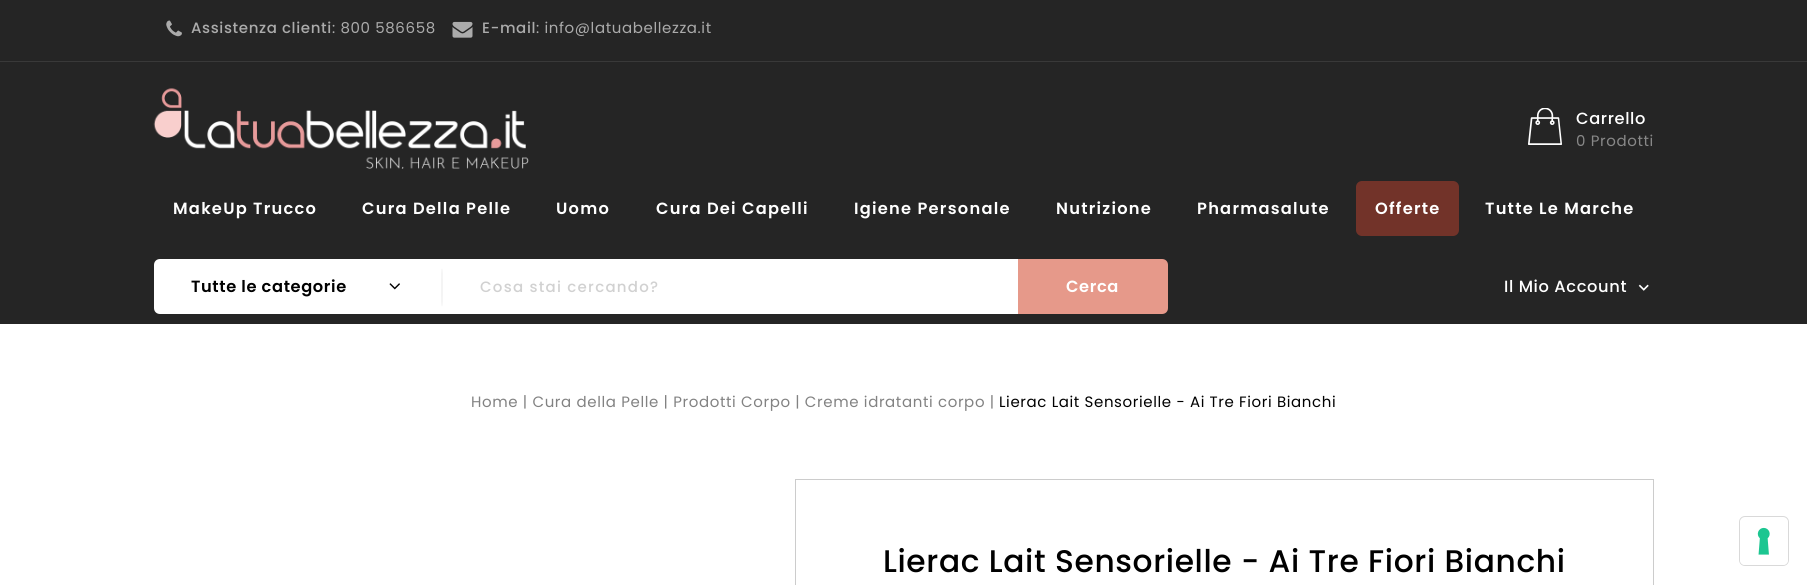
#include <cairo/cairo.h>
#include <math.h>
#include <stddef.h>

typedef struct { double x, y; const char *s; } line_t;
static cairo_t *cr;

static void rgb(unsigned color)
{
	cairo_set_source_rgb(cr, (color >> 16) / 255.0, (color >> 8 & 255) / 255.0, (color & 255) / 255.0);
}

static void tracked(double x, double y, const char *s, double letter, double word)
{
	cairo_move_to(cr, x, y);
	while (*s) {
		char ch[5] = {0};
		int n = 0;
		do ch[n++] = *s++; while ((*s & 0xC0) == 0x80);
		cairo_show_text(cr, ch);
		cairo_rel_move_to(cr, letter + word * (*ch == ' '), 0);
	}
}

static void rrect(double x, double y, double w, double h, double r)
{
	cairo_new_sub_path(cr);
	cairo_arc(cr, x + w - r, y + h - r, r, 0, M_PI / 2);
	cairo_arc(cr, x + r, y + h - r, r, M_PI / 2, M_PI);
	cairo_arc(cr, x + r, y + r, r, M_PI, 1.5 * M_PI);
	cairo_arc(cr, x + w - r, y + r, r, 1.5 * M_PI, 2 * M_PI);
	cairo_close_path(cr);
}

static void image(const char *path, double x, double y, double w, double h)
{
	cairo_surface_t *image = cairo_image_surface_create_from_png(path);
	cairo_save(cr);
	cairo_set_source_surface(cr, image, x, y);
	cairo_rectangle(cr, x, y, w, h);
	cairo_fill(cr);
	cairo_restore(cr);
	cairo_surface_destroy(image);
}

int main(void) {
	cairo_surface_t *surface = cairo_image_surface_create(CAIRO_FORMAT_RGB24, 1807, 585);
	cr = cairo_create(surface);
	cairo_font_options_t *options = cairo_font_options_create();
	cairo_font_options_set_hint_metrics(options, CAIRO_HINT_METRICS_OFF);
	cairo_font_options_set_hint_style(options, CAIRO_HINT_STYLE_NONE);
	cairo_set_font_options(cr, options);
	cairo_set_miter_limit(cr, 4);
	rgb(0xffffff);
	cairo_paint(cr);
	rgb(0x252525);
	cairo_rectangle(cr, 0, 0, 1807, 324);
	cairo_fill(cr);
	rgb(0x393939);
	cairo_rectangle(cr, 0, 61, 1807, 1);
	cairo_fill(cr);
	image("img/1.png", 166, 20, 16, 17);
	image("img/2.png", 452, 21, 21, 17);
	image("img/3.png", 153, 88, 376, 81);
	image("img/4.png", 1528, 108, 34, 37);
	rgb(0x723329);
	rrect(1356, 181, 103, 55, 6);
	cairo_fill(cr);
	rgb(0xffffff);
	cairo_new_path(cr);
	cairo_move_to(cr, 160, 259);
	cairo_line_to(cr, 443, 259);
	cairo_line_to(cr, 443, 314);
	cairo_line_to(cr, 160, 314);
	cairo_curve_to(cr, 156.5, 314, 154, 311.5, 154, 308);
	cairo_line_to(cr, 154, 265);
	cairo_curve_to(cr, 154, 261.5, 156.5, 259, 160, 259);
	cairo_close_path(cr);
	cairo_fill(cr);
	image("img/5.png", 389, 283, 11, 7);
	rgb(0xe8e8e8);
	cairo_new_path(cr);
	cairo_move_to(cr, 442, 268.5);
	cairo_curve_to(cr, 442.5, 268.5, 442.5, 277, 442.5, 287.5);
	cairo_curve_to(cr, 442.5, 298, 442.5, 306.5, 442, 306.5);
	cairo_curve_to(cr, 441.5, 306.5, 441.5, 298, 441.5, 287.5);
	cairo_curve_to(cr, 441.5, 277, 441.5, 268.5, 442, 268.5);
	cairo_close_path(cr);
	cairo_fill(cr);
	rgb(0xffffff);
	cairo_rectangle(cr, 443, 259, 575, 55);
	cairo_fill(cr);
	rgb(0xe6998a);
	cairo_new_path(cr);
	cairo_move_to(cr, 1018, 259);
	cairo_line_to(cr, 1162, 259);
	cairo_curve_to(cr, 1165.5, 259, 1168, 261.5, 1168, 265);
	cairo_line_to(cr, 1168, 308);
	cairo_curve_to(cr, 1168, 311.5, 1165.5, 314, 1162, 314);
	cairo_line_to(cr, 1018, 314);
	cairo_close_path(cr);
	cairo_fill(cr);
	image("img/6.png", 1638, 284, 11, 7);
	cairo_rectangle(cr, 795.5, 479.5, 858, 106);
	rgb(0xcccccc);
	cairo_set_line_width(cr, 1);
	cairo_stroke(cr);
	rrect(1739.5, 516.5, 49, 49, 5.5);
	rgb(0xd9d9d9);
	cairo_stroke(cr);
	rgb(0xffffff);
	rrect(1740, 518, 48, 47, 5);
	cairo_fill(cr);
	image("img/7.png", 1757, 527, 13, 28);
	cairo_select_font_face(cr, "Poppins Medium", CAIRO_FONT_SLANT_NORMAL, CAIRO_FONT_WEIGHT_NORMAL);
	cairo_set_font_size(cr, 15);
	rgb(0xababab);
	tracked(191, 33, "Assistenza clienti", 0.62, 0);
	cairo_select_font_face(cr, "Poppins", CAIRO_FONT_SLANT_NORMAL, CAIRO_FONT_WEIGHT_NORMAL);
	tracked(332, 33, ": 800 586658", 0.62, 0);
	cairo_select_font_face(cr, "Poppins Medium", CAIRO_FONT_SLANT_NORMAL, CAIRO_FONT_WEIGHT_NORMAL);
	tracked(482, 33, "E-mail", 0.62, 0);
	cairo_select_font_face(cr, "Poppins", CAIRO_FONT_SLANT_NORMAL, CAIRO_FONT_WEIGHT_NORMAL);
	tracked(536, 33, ": info@latuabellezza.it", 0.62, 0);
	cairo_select_font_face(cr, "Poppins Medium", CAIRO_FONT_SLANT_NORMAL, CAIRO_FONT_WEIGHT_NORMAL);
	cairo_set_font_size(cr, 16.25);
	rgb(0xffffff);
	tracked(1576, 124, "Carrello", 0.62, 0);
	cairo_select_font_face(cr, "Poppins", CAIRO_FONT_SLANT_NORMAL, CAIRO_FONT_WEIGHT_NORMAL);
	cairo_set_font_size(cr, 15);
	rgb(0x888888);
	tracked(1576, 146, "0 Prodotti", 0.62, 0);
	cairo_select_font_face(cr, "Poppins SemiBold", CAIRO_FONT_SLANT_NORMAL, CAIRO_FONT_WEIGHT_NORMAL);
	cairo_set_font_size(cr, 16.25);
	rgb(0xffffff);
	{
		static const line_t items[] = {
			{173, 214, "MakeUp Trucco"},
			{362, 214, "Cura Della Pelle"},
			{556, 214, "Uomo"},
			{656, 214, "Cura Dei Capelli"},
			{854, 214, "Igiene Personale"},
			{1056, 214, "Nutrizione"},
			{1197, 214, "Pharmasalute"},
			{1375, 214, "Offerte"},
			{1485, 214, "Tutte Le Marche"},
		};
		for (size_t i = 0; i < sizeof items / sizeof *items; i++) {
			tracked(items[i].x, items[i].y, items[i].s, 1.25, 0);
		}
	}
	rgb(0x000000);
	tracked(191, 292, "Tutte le categorie", 0.62, 0);
	cairo_select_font_face(cr, "Poppins Medium", CAIRO_FONT_SLANT_NORMAL, CAIRO_FONT_WEIGHT_NORMAL);
	cairo_set_font_size(cr, 15);
	rgb(0xd1d1d1);
	tracked(480, 292, "Cosa stai cercando?", 1.25, 0);
	cairo_select_font_face(cr, "Poppins SemiBold", CAIRO_FONT_SLANT_NORMAL, CAIRO_FONT_WEIGHT_NORMAL);
	cairo_set_font_size(cr, 16.25);
	rgb(0xffffff);
	tracked(1066, 292, "Cerca", 0.62, 0);
	cairo_select_font_face(cr, "Poppins Medium", CAIRO_FONT_SLANT_NORMAL, CAIRO_FONT_WEIGHT_NORMAL);
	tracked(1504, 292, "Il Mio Account", 0.62, 0);
	cairo_select_font_face(cr, "Poppins", CAIRO_FONT_SLANT_NORMAL, CAIRO_FONT_WEIGHT_NORMAL);
	cairo_set_font_size(cr, 15);
	rgb(0x828282);
	tracked(471, 407, "Home | Cura della Pelle | Prodotti Corpo | Creme idratanti corpo |", 0.62, 0);
	rgb(0x000000);
	tracked(999, 407, "Lierac Lait Sensorielle - Ai Tre Fiori Bianchi", 0.62, 0);
	cairo_select_font_face(cr, "Poppins Medium", CAIRO_FONT_SLANT_NORMAL, CAIRO_FONT_WEIGHT_NORMAL);
	cairo_set_font_size(cr, 31.25);
	tracked(883, 572, "Lierac Lait Sensorielle - Ai Tre Fiori Bianchi", 0.62, 0);
	cairo_surface_write_to_png(surface, "page.png");
	cairo_font_options_destroy(options);
	cairo_destroy(cr);
	cairo_surface_destroy(surface);
	return 0;
}
